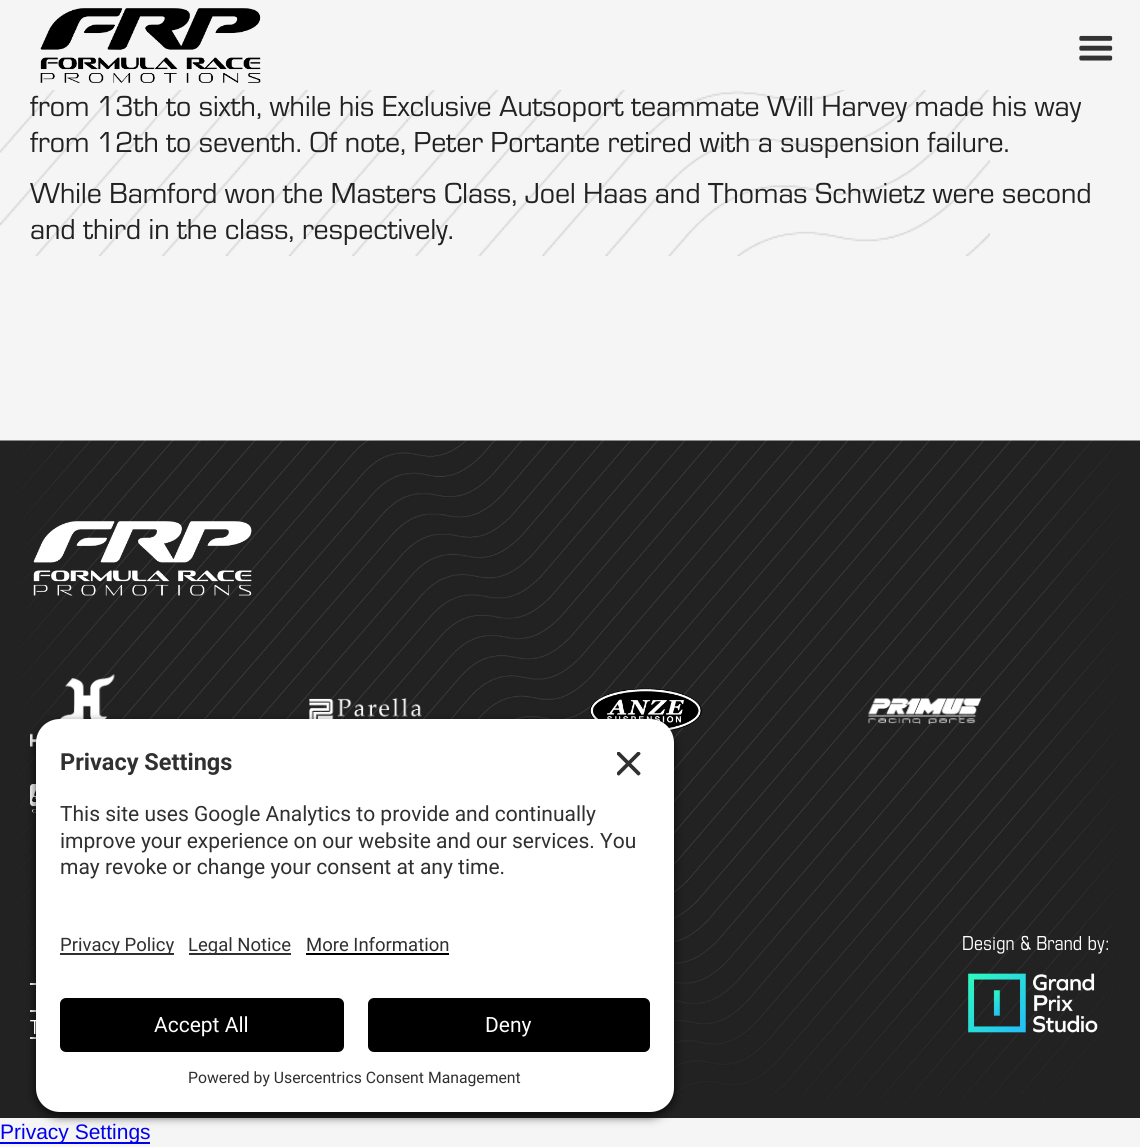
#include <cairo/cairo.h>
#include <math.h>
#include <stddef.h>

typedef struct { double x, y; const char *s; } line_t;
typedef struct { double x, y, w, h; unsigned color; } box_t;
static cairo_t *cr;

static void rgb(unsigned color)
{
	cairo_set_source_rgb(cr, (color >> 16) / 255.0, (color >> 8 & 255) / 255.0, (color & 255) / 255.0);
}

static void rrect(double x, double y, double w, double h, double r)
{
	cairo_new_sub_path(cr);
	cairo_arc(cr, x + w - r, y + h - r, r, 0, M_PI / 2);
	cairo_arc(cr, x + r, y + h - r, r, M_PI / 2, M_PI);
	cairo_arc(cr, x + r, y + r, r, M_PI, 1.5 * M_PI);
	cairo_arc(cr, x + w - r, y + r, r, 1.5 * M_PI, 2 * M_PI);
	cairo_close_path(cr);
}

static void soft_shadow(double x, double y, double w, double h, double r, double blur, double alpha)
{
	cairo_push_group_with_content(cr, CAIRO_CONTENT_ALPHA);
	cairo_set_operator(cr, CAIRO_OPERATOR_SOURCE);
	for (int i = 15; i >= -15 && fmin(w, h) + blur * i / 3 > 0; i -= 2) {
		double e = blur * i / 6;
		cairo_set_source_rgba(cr, 0, 0, 0, alpha * erfc((i - 1) / 8.5) / 2);
		rrect(x - e, y - e, w + 2 * e, h + 2 * e, fmax(0, fmin(r + e + blur * .6, fmin(w, h) / 2 + e)));
		cairo_fill(cr);
	}
	cairo_pattern_t *soft = cairo_pop_group(cr);
	cairo_mask(cr, soft);
	cairo_pattern_destroy(soft);
}

static void image(const char *path, double x, double y, double w, double h)
{
	cairo_surface_t *image = cairo_image_surface_create_from_png(path);
	cairo_save(cr);
	cairo_set_source_surface(cr, image, x, y);
	cairo_rectangle(cr, x, y, w, h);
	cairo_fill(cr);
	cairo_restore(cr);
	cairo_surface_destroy(image);
}

int main(void) {
	cairo_surface_t *surface = cairo_image_surface_create(CAIRO_FORMAT_RGB24, 1140, 1147);
	cr = cairo_create(surface);
	cairo_font_options_t *options = cairo_font_options_create();
	cairo_font_options_set_hint_metrics(options, CAIRO_HINT_METRICS_OFF);
	cairo_font_options_set_hint_style(options, CAIRO_HINT_STYLE_NONE);
	cairo_set_font_options(cr, options);
	cairo_set_miter_limit(cr, 4);
	rgb(0xf5f5f5);
	cairo_paint(cr);
	image("img/1.png", 40, 8, 221, 75);
	image("img/2.png", 1079, 35, 34, 26);
	image("img/3.png", 0, 90, 990, 166);
	rgb(0x222222);
	cairo_rectangle(cr, 0, 1099, 1140, 19);
	cairo_fill(cr);
	image("img/5.png", 0, 440, 1140, 659);
	image("img/7.png", 30, 674, 85, 73);
	image("img/8.png", 309, 698, 113, 21);
	image("img/9.png", 589, 688, 113, 44);
	image("img/11.png", 30, 784, 6, 29);
	{
		static const box_t items[] = {
			{30, 983, 6, 2, 0xffffff},
			{30, 1010, 6, 2, 0xffffff},
			{30, 1037, 6, 2, 0xffffff},
		};
		for (size_t i = 0; i < sizeof items / sizeof *items; i++) {
			rgb(items[i].color);
			cairo_rectangle(cr, items[i].x, items[i].y, items[i].w, items[i].h);
			cairo_fill(cr);
		}
	}
	rgb(0x000000);
	soft_shadow(36, 723, 638, 393, 24, 5, 0.8);
	rgb(0xffffff);
	cairo_new_path(cr);
	cairo_move_to(cr, 60, 719);
	cairo_line_to(cr, 650, 719);
	cairo_curve_to(cr, 663.5, 719, 674, 729.5, 674, 743);
	cairo_line_to(cr, 674, 911);
	cairo_line_to(cr, 36, 911);
	cairo_line_to(cr, 36, 743);
	cairo_curve_to(cr, 36, 729.5, 46.5, 719, 60, 719);
	cairo_close_path(cr);
	cairo_fill(cr);
	image("img/4.png", 617, 752, 24, 24);
	cairo_new_path(cr);
	cairo_move_to(cr, 36, 911);
	cairo_line_to(cr, 674, 911);
	cairo_line_to(cr, 674, 1088);
	cairo_curve_to(cr, 674, 1101.5, 663.5, 1112, 650, 1112);
	cairo_line_to(cr, 60, 1112);
	cairo_curve_to(cr, 46.5, 1112, 36, 1101.5, 36, 1088);
	cairo_close_path(cr);
	cairo_fill(cr);
	{
		static const box_t items[] = {
			{60, 953, 114, 2, 0x303030},
			{189, 953, 102, 2, 0x303030},
			{306, 953, 143, 2, 0x000000},
		};
		for (size_t i = 0; i < sizeof items / sizeof *items; i++) {
			rgb(items[i].color);
			cairo_rectangle(cr, items[i].x, items[i].y, items[i].w, items[i].h);
			cairo_fill(cr);
		}
	}
	rrect(60, 998, 284, 54, 6);
	cairo_fill(cr);
	rrect(368, 998, 282, 54, 6);
	cairo_fill(cr);
	image("img/6.png", 33, 521, 219, 75);
	image("img/10.png", 868, 698, 113, 26);
	image("img/12.png", 968, 973, 130, 60);
	rgb(0x0000ee);
	cairo_rectangle(cr, 0, 1142, 150, 2);
	cairo_fill(cr);
	cairo_select_font_face(cr, "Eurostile", CAIRO_FONT_SLANT_NORMAL, CAIRO_FONT_WEIGHT_NORMAL);
	cairo_set_font_size(cr, 30);
	rgb(0x222222);
	{
		static const line_t items[] = {
			{30, 116, "from 13th to sixth, while his Exclusive Autsoport teammate Will Harvey made his way"},
			{30, 152, "from 12th to seventh. Of note, Peter Portante retired with a suspension failure."},
			{30, 203, "While Bamford won the Masters Class, Joel Haas and Thomas Schwietz were second"},
			{30, 239, "and third in the class, respectively."},
		};
		for (size_t i = 0; i < sizeof items / sizeof *items; i++) {
			cairo_move_to(cr, items[i].x, items[i].y);
			cairo_show_text(cr, items[i].s);
		}
	}
	cairo_select_font_face(cr, "Roboto", CAIRO_FONT_SLANT_NORMAL, CAIRO_FONT_WEIGHT_BOLD);
	cairo_set_font_size(cr, 23.5);
	rgb(0x303030);
	cairo_move_to(cr, 60, 770);
	cairo_show_text(cr, "Privacy Settings");
	cairo_select_font_face(cr, "Roboto", CAIRO_FONT_SLANT_NORMAL, CAIRO_FONT_WEIGHT_NORMAL);
	cairo_set_font_size(cr, 21);
	{
		static const line_t items[] = {
			{60, 821, "This site uses Google Analytics to provide and continually"},
			{60, 848, "improve your experience on our website and our services. You"},
			{60, 874, "may revoke or change your consent at any time."},
		};
		for (size_t i = 0; i < sizeof items / sizeof *items; i++) {
			cairo_move_to(cr, items[i].x, items[i].y);
			cairo_show_text(cr, items[i].s);
		}
	}
	cairo_set_font_size(cr, 18.5);
	{
		static const line_t items[] = {
			{60, 951, "Privacy Policy"},
			{188, 951, "Legal Notice"},
			{306, 951, "More Information"},
		};
		for (size_t i = 0; i < sizeof items / sizeof *items; i++) {
			cairo_move_to(cr, items[i].x, items[i].y);
			cairo_show_text(cr, items[i].s);
		}
	}
	cairo_set_font_size(cr, 21);
	rgb(0xffffff);
	cairo_move_to(cr, 154, 1032);
	cairo_show_text(cr, "Accept All");
	cairo_move_to(cr, 485, 1032);
	cairo_show_text(cr, "Deny");
	cairo_set_font_size(cr, 15.75);
	rgb(0x303030);
	cairo_move_to(cr, 188, 1083);
	cairo_show_text(cr, "Powered by Usercentrics Consent Management");
	cairo_select_font_face(cr, "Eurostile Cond", CAIRO_FONT_SLANT_NORMAL, CAIRO_FONT_WEIGHT_NORMAL);
	cairo_set_font_size(cr, 21);
	rgb(0xffffff);
	cairo_move_to(cr, 962, 950);
	cairo_show_text(cr, "Design & Brand by:");
	cairo_move_to(cr, 30, 1034);
	cairo_show_text(cr, "T");
	cairo_select_font_face(cr, "Liberation Sans", CAIRO_FONT_SLANT_NORMAL, CAIRO_FONT_WEIGHT_NORMAL);
	rgb(0x0000ee);
	cairo_move_to(cr, 0, 1139);
	cairo_show_text(cr, "Privacy Settings");
	cairo_surface_write_to_png(surface, "page.png");
	cairo_font_options_destroy(options);
	cairo_destroy(cr);
	cairo_surface_destroy(surface);
	return 0;
}
